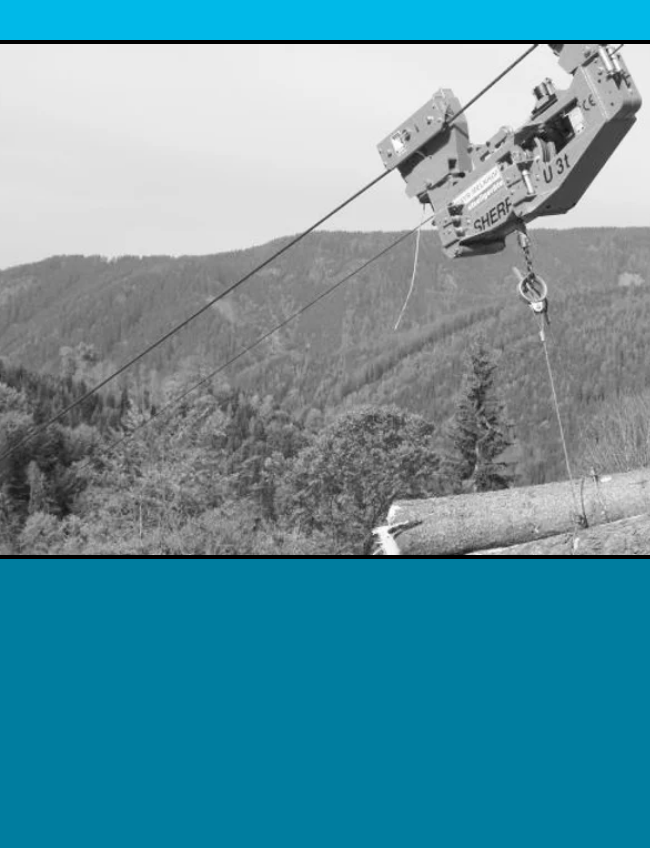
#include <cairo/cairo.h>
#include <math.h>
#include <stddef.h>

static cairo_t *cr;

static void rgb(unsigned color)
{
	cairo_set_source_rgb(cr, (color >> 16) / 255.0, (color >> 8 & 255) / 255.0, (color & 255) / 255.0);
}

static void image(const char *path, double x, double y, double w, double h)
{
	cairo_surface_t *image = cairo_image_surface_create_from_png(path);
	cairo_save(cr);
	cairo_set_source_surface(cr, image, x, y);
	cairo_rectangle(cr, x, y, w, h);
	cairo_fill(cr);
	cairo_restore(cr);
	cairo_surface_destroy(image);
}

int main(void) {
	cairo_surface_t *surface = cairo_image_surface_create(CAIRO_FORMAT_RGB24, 650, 848);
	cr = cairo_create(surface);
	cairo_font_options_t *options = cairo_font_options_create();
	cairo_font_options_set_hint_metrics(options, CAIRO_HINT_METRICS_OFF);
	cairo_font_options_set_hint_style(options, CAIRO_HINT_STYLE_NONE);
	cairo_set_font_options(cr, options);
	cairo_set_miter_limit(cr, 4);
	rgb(0x00b9e8);
	cairo_paint(cr);
	rgb(0x000000);
	cairo_rectangle(cr, 0, 40, 650, 519);
	cairo_fill(cr);
	image("img/1.png", 0, 44, 650, 511);
	rgb(0x007d9f);
	cairo_rectangle(cr, 0, 559, 650, 289);
	cairo_fill(cr);
	cairo_surface_write_to_png(surface, "page.png");
	cairo_font_options_destroy(options);
	cairo_destroy(cr);
	cairo_surface_destroy(surface);
	return 0;
}
